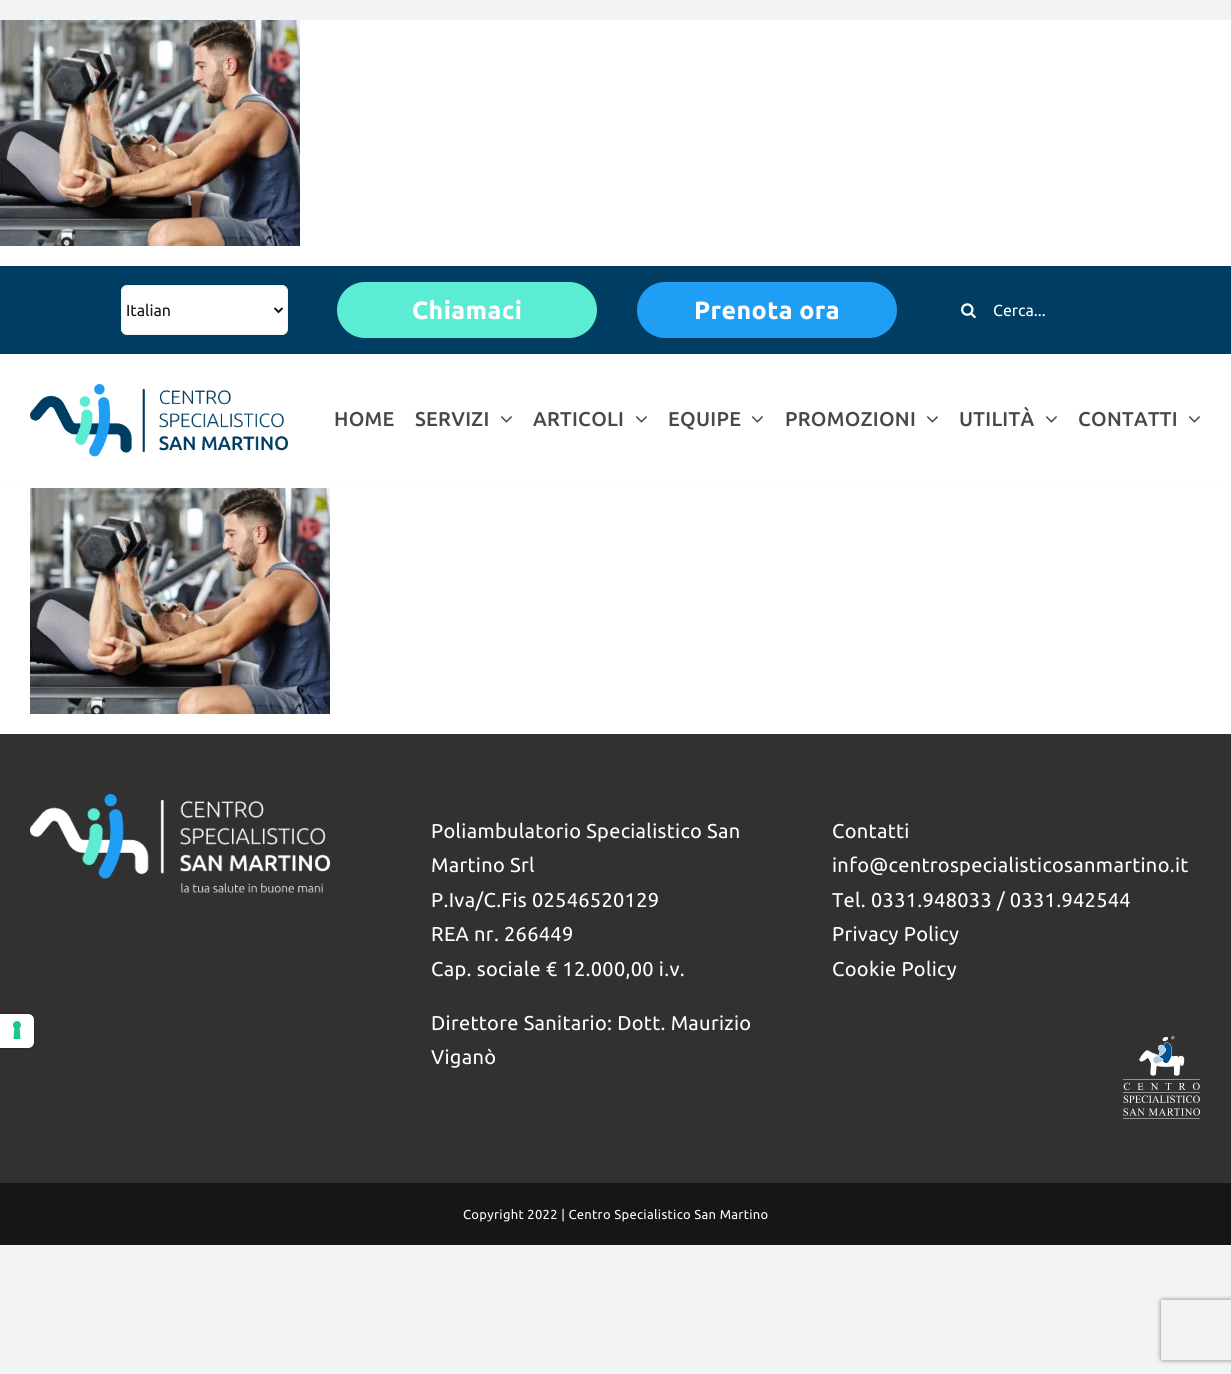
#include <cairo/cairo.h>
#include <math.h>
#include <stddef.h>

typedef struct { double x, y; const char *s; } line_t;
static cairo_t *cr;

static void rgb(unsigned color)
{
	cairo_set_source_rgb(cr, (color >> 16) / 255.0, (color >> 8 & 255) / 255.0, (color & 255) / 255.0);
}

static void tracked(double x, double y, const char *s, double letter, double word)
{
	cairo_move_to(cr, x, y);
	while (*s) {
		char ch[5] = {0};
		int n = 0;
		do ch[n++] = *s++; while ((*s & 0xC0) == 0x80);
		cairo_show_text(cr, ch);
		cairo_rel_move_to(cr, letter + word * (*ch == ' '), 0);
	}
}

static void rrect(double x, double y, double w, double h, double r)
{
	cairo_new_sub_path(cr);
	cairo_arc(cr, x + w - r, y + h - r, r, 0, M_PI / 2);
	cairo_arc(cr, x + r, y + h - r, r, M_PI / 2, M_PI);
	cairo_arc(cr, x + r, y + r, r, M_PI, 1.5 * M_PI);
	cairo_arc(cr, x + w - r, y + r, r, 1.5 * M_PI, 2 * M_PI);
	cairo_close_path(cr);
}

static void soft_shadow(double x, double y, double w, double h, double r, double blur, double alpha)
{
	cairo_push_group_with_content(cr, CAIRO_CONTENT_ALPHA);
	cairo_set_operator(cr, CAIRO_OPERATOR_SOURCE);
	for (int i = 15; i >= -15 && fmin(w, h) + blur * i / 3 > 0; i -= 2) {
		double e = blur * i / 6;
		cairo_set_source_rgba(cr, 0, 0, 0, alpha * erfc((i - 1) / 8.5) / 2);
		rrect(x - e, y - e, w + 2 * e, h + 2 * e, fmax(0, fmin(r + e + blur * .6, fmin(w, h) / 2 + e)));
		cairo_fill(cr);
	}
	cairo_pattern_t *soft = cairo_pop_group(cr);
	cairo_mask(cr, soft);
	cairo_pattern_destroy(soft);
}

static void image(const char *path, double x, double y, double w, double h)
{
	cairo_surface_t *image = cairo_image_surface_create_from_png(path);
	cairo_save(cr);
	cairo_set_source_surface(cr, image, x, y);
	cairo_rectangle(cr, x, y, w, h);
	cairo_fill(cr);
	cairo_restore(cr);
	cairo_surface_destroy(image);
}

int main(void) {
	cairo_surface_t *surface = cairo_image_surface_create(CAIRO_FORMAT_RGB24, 1231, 1374);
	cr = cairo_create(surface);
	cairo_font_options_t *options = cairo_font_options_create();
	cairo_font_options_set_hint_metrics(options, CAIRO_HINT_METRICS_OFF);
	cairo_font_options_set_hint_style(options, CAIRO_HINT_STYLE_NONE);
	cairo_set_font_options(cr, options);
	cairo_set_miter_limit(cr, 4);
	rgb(0xf2f3f5);
	cairo_paint(cr);
	rgb(0x313131);
	cairo_rectangle(cr, 0, 734, 1231, 449);
	cairo_fill(cr);
	cairo_new_path(cr);
	cairo_move_to(cr, -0.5, 1013.5);
	cairo_line_to(cr, 28, 1013.5);
	cairo_curve_to(cr, 31.5, 1013.5, 34.5, 1016.5, 34.5, 1020);
	cairo_line_to(cr, 34.5, 1042);
	cairo_curve_to(cr, 34.5, 1045.5, 31.5, 1048.5, 28, 1048.5);
	cairo_line_to(cr, -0.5, 1048.5);
	cairo_close_path(cr);
	rgb(0x2a2a2a);
	cairo_set_line_width(cr, 1);
	cairo_stroke(cr);
	rgb(0xffffff);
	cairo_new_path(cr);
	cairo_move_to(cr, 0, 1014);
	cairo_line_to(cr, 28, 1014);
	cairo_curve_to(cr, 31.5, 1014, 34, 1016.5, 34, 1020);
	cairo_line_to(cr, 34, 1042);
	cairo_curve_to(cr, 34, 1045.5, 31.5, 1048, 28, 1048);
	cairo_line_to(cr, 0, 1048);
	cairo_close_path(cr);
	cairo_fill(cr);
	image("img/1.png", 13, 1021, 8, 18);
	cairo_rectangle(cr, 0, 20, 1231, 714);
	cairo_fill(cr);
	image("img/2.png", 0, 20, 300, 226);
	rgb(0x003d62);
	cairo_rectangle(cr, 0, 266, 1231, 88);
	cairo_fill(cr);
	rgb(0xffffff);
	rrect(121.5, 285.5, 166, 49, 5.5);
	cairo_fill_preserve(cr);
	rgb(0xf2f3f5);
	cairo_stroke(cr);
	cairo_new_path(cr);
	cairo_move_to(cr, 274.5, 308);
	cairo_line_to(cr, 278.5, 312);
	cairo_line_to(cr, 282.5, 308);
	rgb(0x141617);
	cairo_set_line_width(cr, 2);
	cairo_stroke(cr);
	rgb(0x5cecd3);
	rrect(337, 282, 260, 56, 28);
	cairo_fill(cr);
	rgb(0x209df5);
	rrect(637, 282, 260, 56, 28);
	cairo_fill(cr);
	image("img/3.png", 961, 303, 15, 16);
	image("img/4.png", 30, 384, 258, 73);
	image("img/5.png", 500, 416, 12, 7);
	image("img/5.png", 635, 416, 12, 7);
	image("img/5.png", 751, 416, 12, 7);
	image("img/5.png", 926, 416, 12, 7);
	image("img/5.png", 1045, 416, 12, 7);
	image("img/5.png", 1188, 416, 12, 7);
	rgb(0xfcfcfc);
	cairo_rectangle(cr, 0, 487, 1231, 1);
	cairo_fill(cr);
	image("img/2.png", 30, 488, 300, 226);
	image("img/6.png", 30, 794, 300, 99);
	image("img/7.png", 1123, 1036, 77, 83);
	rgb(0x141617);
	cairo_rectangle(cr, 0, 1183, 1231, 62);
	cairo_fill(cr);
	cairo_save(cr);
	cairo_set_fill_rule(cr, CAIRO_FILL_RULE_EVEN_ODD);
	cairo_new_path(cr);
	cairo_move_to(cr, 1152, 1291);
	cairo_line_to(cr, 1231, 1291);
	cairo_line_to(cr, 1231, 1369);
	cairo_line_to(cr, 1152, 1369);
	cairo_close_path(cr);
	cairo_move_to(cr, 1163, 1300);
	cairo_line_to(cr, 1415, 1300);
	cairo_curve_to(cr, 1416, 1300, 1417, 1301, 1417, 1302);
	cairo_line_to(cr, 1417, 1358);
	cairo_curve_to(cr, 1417, 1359, 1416, 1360, 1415, 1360);
	cairo_line_to(cr, 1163, 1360);
	cairo_curve_to(cr, 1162, 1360, 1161, 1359, 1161, 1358);
	cairo_line_to(cr, 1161, 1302);
	cairo_curve_to(cr, 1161, 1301, 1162, 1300, 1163, 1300);
	cairo_close_path(cr);
	cairo_clip(cr);
	rgb(0x808080);
	soft_shadow(1161, 1300, 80, 60, 2, 2.5, 1);
	cairo_restore(cr);
	cairo_select_font_face(cr, "Ubuntu", CAIRO_FONT_SLANT_NORMAL, CAIRO_FONT_WEIGHT_NORMAL);
	cairo_set_font_size(cr, 16);
	cairo_move_to(cr, 126, 316);
	cairo_show_text(cr, "Italian");
	cairo_select_font_face(cr, "Ubuntu", CAIRO_FONT_SLANT_NORMAL, CAIRO_FONT_WEIGHT_BOLD);
	cairo_set_font_size(cr, 25);
	rgb(0xffffff);
	tracked(412, 319, "Chiamaci", 0.4, 0);
	tracked(694, 319, "Prenota ora", 0.4, 0);
	cairo_select_font_face(cr, "Ubuntu", CAIRO_FONT_SLANT_NORMAL, CAIRO_FONT_WEIGHT_NORMAL);
	cairo_set_font_size(cr, 16);
	cairo_move_to(cr, 993, 316);
	cairo_show_text(cr, "Cerca...");
	cairo_select_font_face(cr, "Ubuntu Medium", CAIRO_FONT_SLANT_NORMAL, CAIRO_FONT_WEIGHT_NORMAL);
	cairo_set_font_size(cr, 20);
	rgb(0x484848);
	{
		static const line_t items[] = {
			{334, 426, "HOME"},
			{415, 426, "SERVIZI"},
			{533, 426, "ARTICOLI"},
			{668, 426, "EQUIPE"},
			{785, 426, "PROMOZIONI"},
			{959, 426, "UTILITÀ"},
			{1078, 426, "CONTATTI"},
		};
		for (size_t i = 0; i < sizeof items / sizeof *items; i++) {
			tracked(items[i].x, items[i].y, items[i].s, 0.3, 0);
		}
	}
	cairo_select_font_face(cr, "Ubuntu", CAIRO_FONT_SLANT_NORMAL, CAIRO_FONT_WEIGHT_NORMAL);
	rgb(0xffffff);
	{
		static const line_t items[] = {
			{431, 838, "Poliambulatorio Specialistico San"},
			{431, 872, "Martino Srl"},
			{431, 907, "P.Iva/C.Fis 02546520129"},
			{431, 941, "REA nr. 266449"},
			{431, 976, "Cap. sociale € 12.000,00 i.v."},
			{431, 1030, "Direttore Sanitario: Dott. Maurizio"},
			{431, 1064, "Viganò"},
			{832, 838, "Contatti"},
			{832, 872, "info@centrospecialisticosanmartino.it"},
			{832, 907, "Tel. 0331.948033 / 0331.942544"},
			{832, 941, "Privacy Policy"},
			{832, 976, "Cookie Policy"},
		};
		for (size_t i = 0; i < sizeof items / sizeof *items; i++) {
			tracked(items[i].x, items[i].y, items[i].s, 0.3, 0);
		}
	}
	cairo_set_font_size(cr, 13);
	tracked(463, 1219, "Copyright 2022 | Centro Specialistico San Martino", 0.3, 0);
	cairo_surface_write_to_png(surface, "page.png");
	cairo_font_options_destroy(options);
	cairo_destroy(cr);
	cairo_surface_destroy(surface);
	return 0;
}
